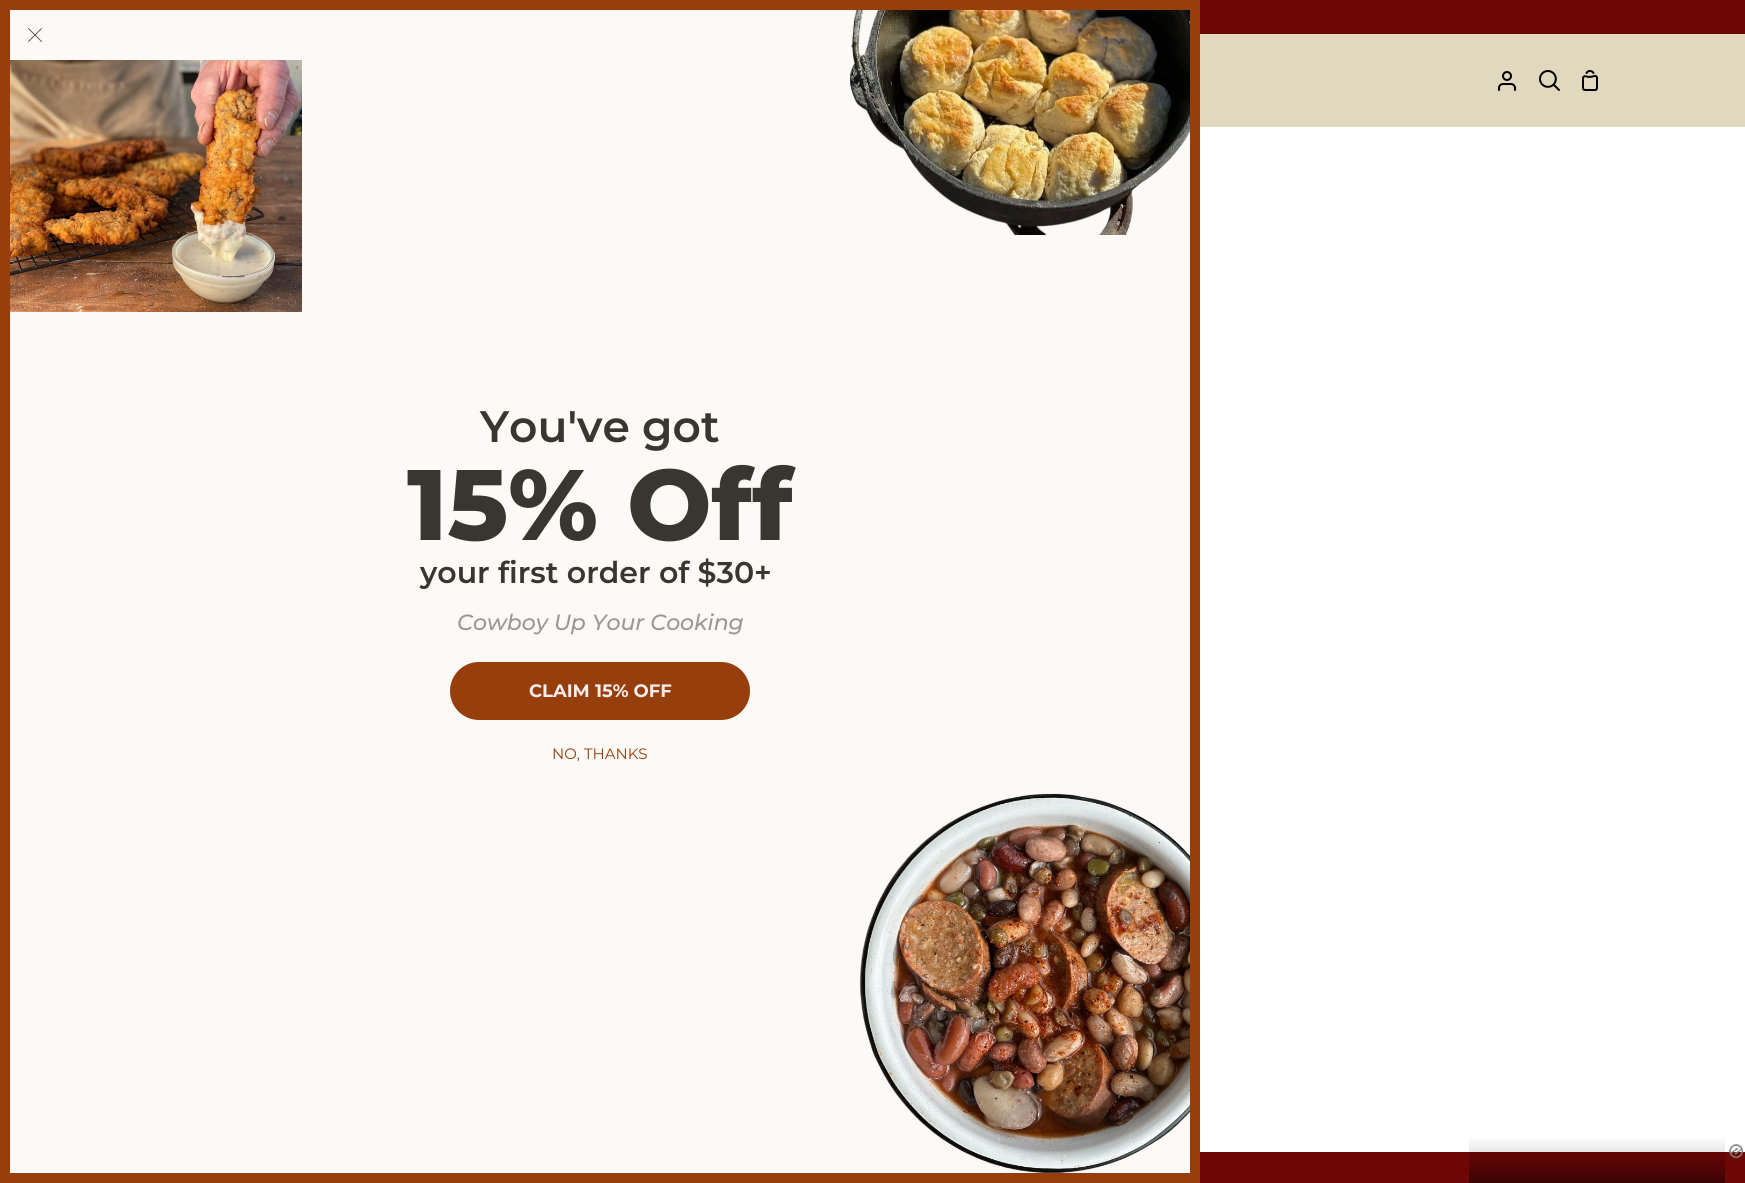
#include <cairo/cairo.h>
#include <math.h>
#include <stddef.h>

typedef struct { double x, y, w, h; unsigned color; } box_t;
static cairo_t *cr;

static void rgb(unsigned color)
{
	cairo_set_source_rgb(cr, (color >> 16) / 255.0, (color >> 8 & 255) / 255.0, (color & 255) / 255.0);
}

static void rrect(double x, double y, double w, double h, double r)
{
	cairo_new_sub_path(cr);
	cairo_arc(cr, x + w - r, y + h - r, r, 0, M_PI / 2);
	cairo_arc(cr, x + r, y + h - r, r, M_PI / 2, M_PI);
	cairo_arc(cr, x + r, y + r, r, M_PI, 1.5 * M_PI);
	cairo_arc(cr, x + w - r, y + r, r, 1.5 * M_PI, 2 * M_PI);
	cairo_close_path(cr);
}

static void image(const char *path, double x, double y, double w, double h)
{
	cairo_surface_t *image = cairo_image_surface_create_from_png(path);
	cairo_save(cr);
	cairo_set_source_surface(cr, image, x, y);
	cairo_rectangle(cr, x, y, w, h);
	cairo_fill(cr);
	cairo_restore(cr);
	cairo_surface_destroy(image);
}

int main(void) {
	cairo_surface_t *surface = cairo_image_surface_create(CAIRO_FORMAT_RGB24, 1745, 1183);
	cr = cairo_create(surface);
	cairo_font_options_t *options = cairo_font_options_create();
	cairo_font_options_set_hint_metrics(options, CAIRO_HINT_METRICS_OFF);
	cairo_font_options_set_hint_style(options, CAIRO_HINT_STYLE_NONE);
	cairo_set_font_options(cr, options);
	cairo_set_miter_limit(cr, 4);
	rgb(0xffffff);
	cairo_paint(cr);
	{
		static const box_t items[] = {
			{10, 127, 1180, 1046, 0xfdf9f6},
			{1200, 0, 545, 34, 0x6f0606},
			{10, 10, 869, 24, 0xfdf9f6},
			{1200, 34, 545, 93, 0xe2d8be},
			{10, 34, 867, 93, 0xfdf9f6},
		};
		for (size_t i = 0; i < sizeof items / sizeof *items; i++) {
			rgb(items[i].color);
			cairo_rectangle(cr, items[i].x, items[i].y, items[i].w, items[i].h);
			cairo_fill(cr);
		}
	}
	image("img/1.png", 162, 55, 229, 47);
	image("img/2.png", 1498, 71, 18, 20);
	image("img/3.png", 1539, 70, 21, 21);
	image("img/4.png", 1582, 70, 16, 21);
	cairo_rectangle(cr, 5, 5, 1190, 1173);
	rgb(0x963e0c);
	cairo_set_line_width(cr, 10);
	cairo_stroke(cr);
	image("img/5.png", 10, 60, 292, 252);
	image("img/6.png", 850, 10, 340, 225);
	image("img/7.png", 860, 793, 330, 380);
	cairo_new_path(cr);
	cairo_move_to(cr, 28.5, 28.5);
	cairo_line_to(cr, 41.5, 41.5);
	cairo_move_to(cr, 41.5, 28.5);
	cairo_line_to(cr, 28.5, 41.5);
	rgb(0x373730);
	cairo_set_line_width(cr, 0.8);
	cairo_set_line_cap(cr, CAIRO_LINE_CAP_ROUND);
	cairo_stroke(cr);
	rgb(0x963e0c);
	rrect(450, 662, 300, 58, 29);
	cairo_fill(cr);
	rgb(0x6f0606);
	cairo_rectangle(cr, 1200, 1152, 545, 31);
	cairo_fill(cr);
	image("img/8.png", 1469, 1139, 256, 44);
	image("img/9.png", 1729, 1144, 14, 14);
	cairo_select_font_face(cr, "Montserrat SemiBold", CAIRO_FONT_SLANT_NORMAL, CAIRO_FONT_WEIGHT_NORMAL);
	cairo_set_font_size(cr, 44);
	rgb(0x373730);
	cairo_move_to(cr, 480, 442);
	cairo_show_text(cr, "You've got");
	cairo_select_font_face(cr, "Montserrat ExtraBold", CAIRO_FONT_SLANT_NORMAL, CAIRO_FONT_WEIGHT_NORMAL);
	cairo_set_font_size(cr, 100);
	cairo_move_to(cr, 407, 540);
	cairo_show_text(cr, "15% Off");
	cairo_select_font_face(cr, "Montserrat SemiBold", CAIRO_FONT_SLANT_NORMAL, CAIRO_FONT_WEIGHT_NORMAL);
	cairo_set_font_size(cr, 30);
	cairo_move_to(cr, 420, 583);
	cairo_show_text(cr, "your first order of $30+");
	cairo_select_font_face(cr, "Montserrat Thin", CAIRO_FONT_SLANT_ITALIC, CAIRO_FONT_WEIGHT_NORMAL);
	cairo_set_font_size(cr, 22);
	rgb(0x9a9893);
	cairo_move_to(cr, 457, 630);
	cairo_show_text(cr, "Cowboy Up Your Cooking");
	cairo_select_font_face(cr, "Montserrat", CAIRO_FONT_SLANT_NORMAL, CAIRO_FONT_WEIGHT_BOLD);
	cairo_set_font_size(cr, 18);
	rgb(0xf6eeee);
	cairo_move_to(cr, 529, 697);
	cairo_show_text(cr, "CLAIM 15% OFF");
	cairo_select_font_face(cr, "Montserrat", CAIRO_FONT_SLANT_NORMAL, CAIRO_FONT_WEIGHT_NORMAL);
	cairo_set_font_size(cr, 15);
	rgb(0x963e0c);
	cairo_move_to(cr, 552, 759);
	cairo_show_text(cr, "NO, THANKS");
	cairo_surface_write_to_png(surface, "page.png");
	cairo_font_options_destroy(options);
	cairo_destroy(cr);
	cairo_surface_destroy(surface);
	return 0;
}
